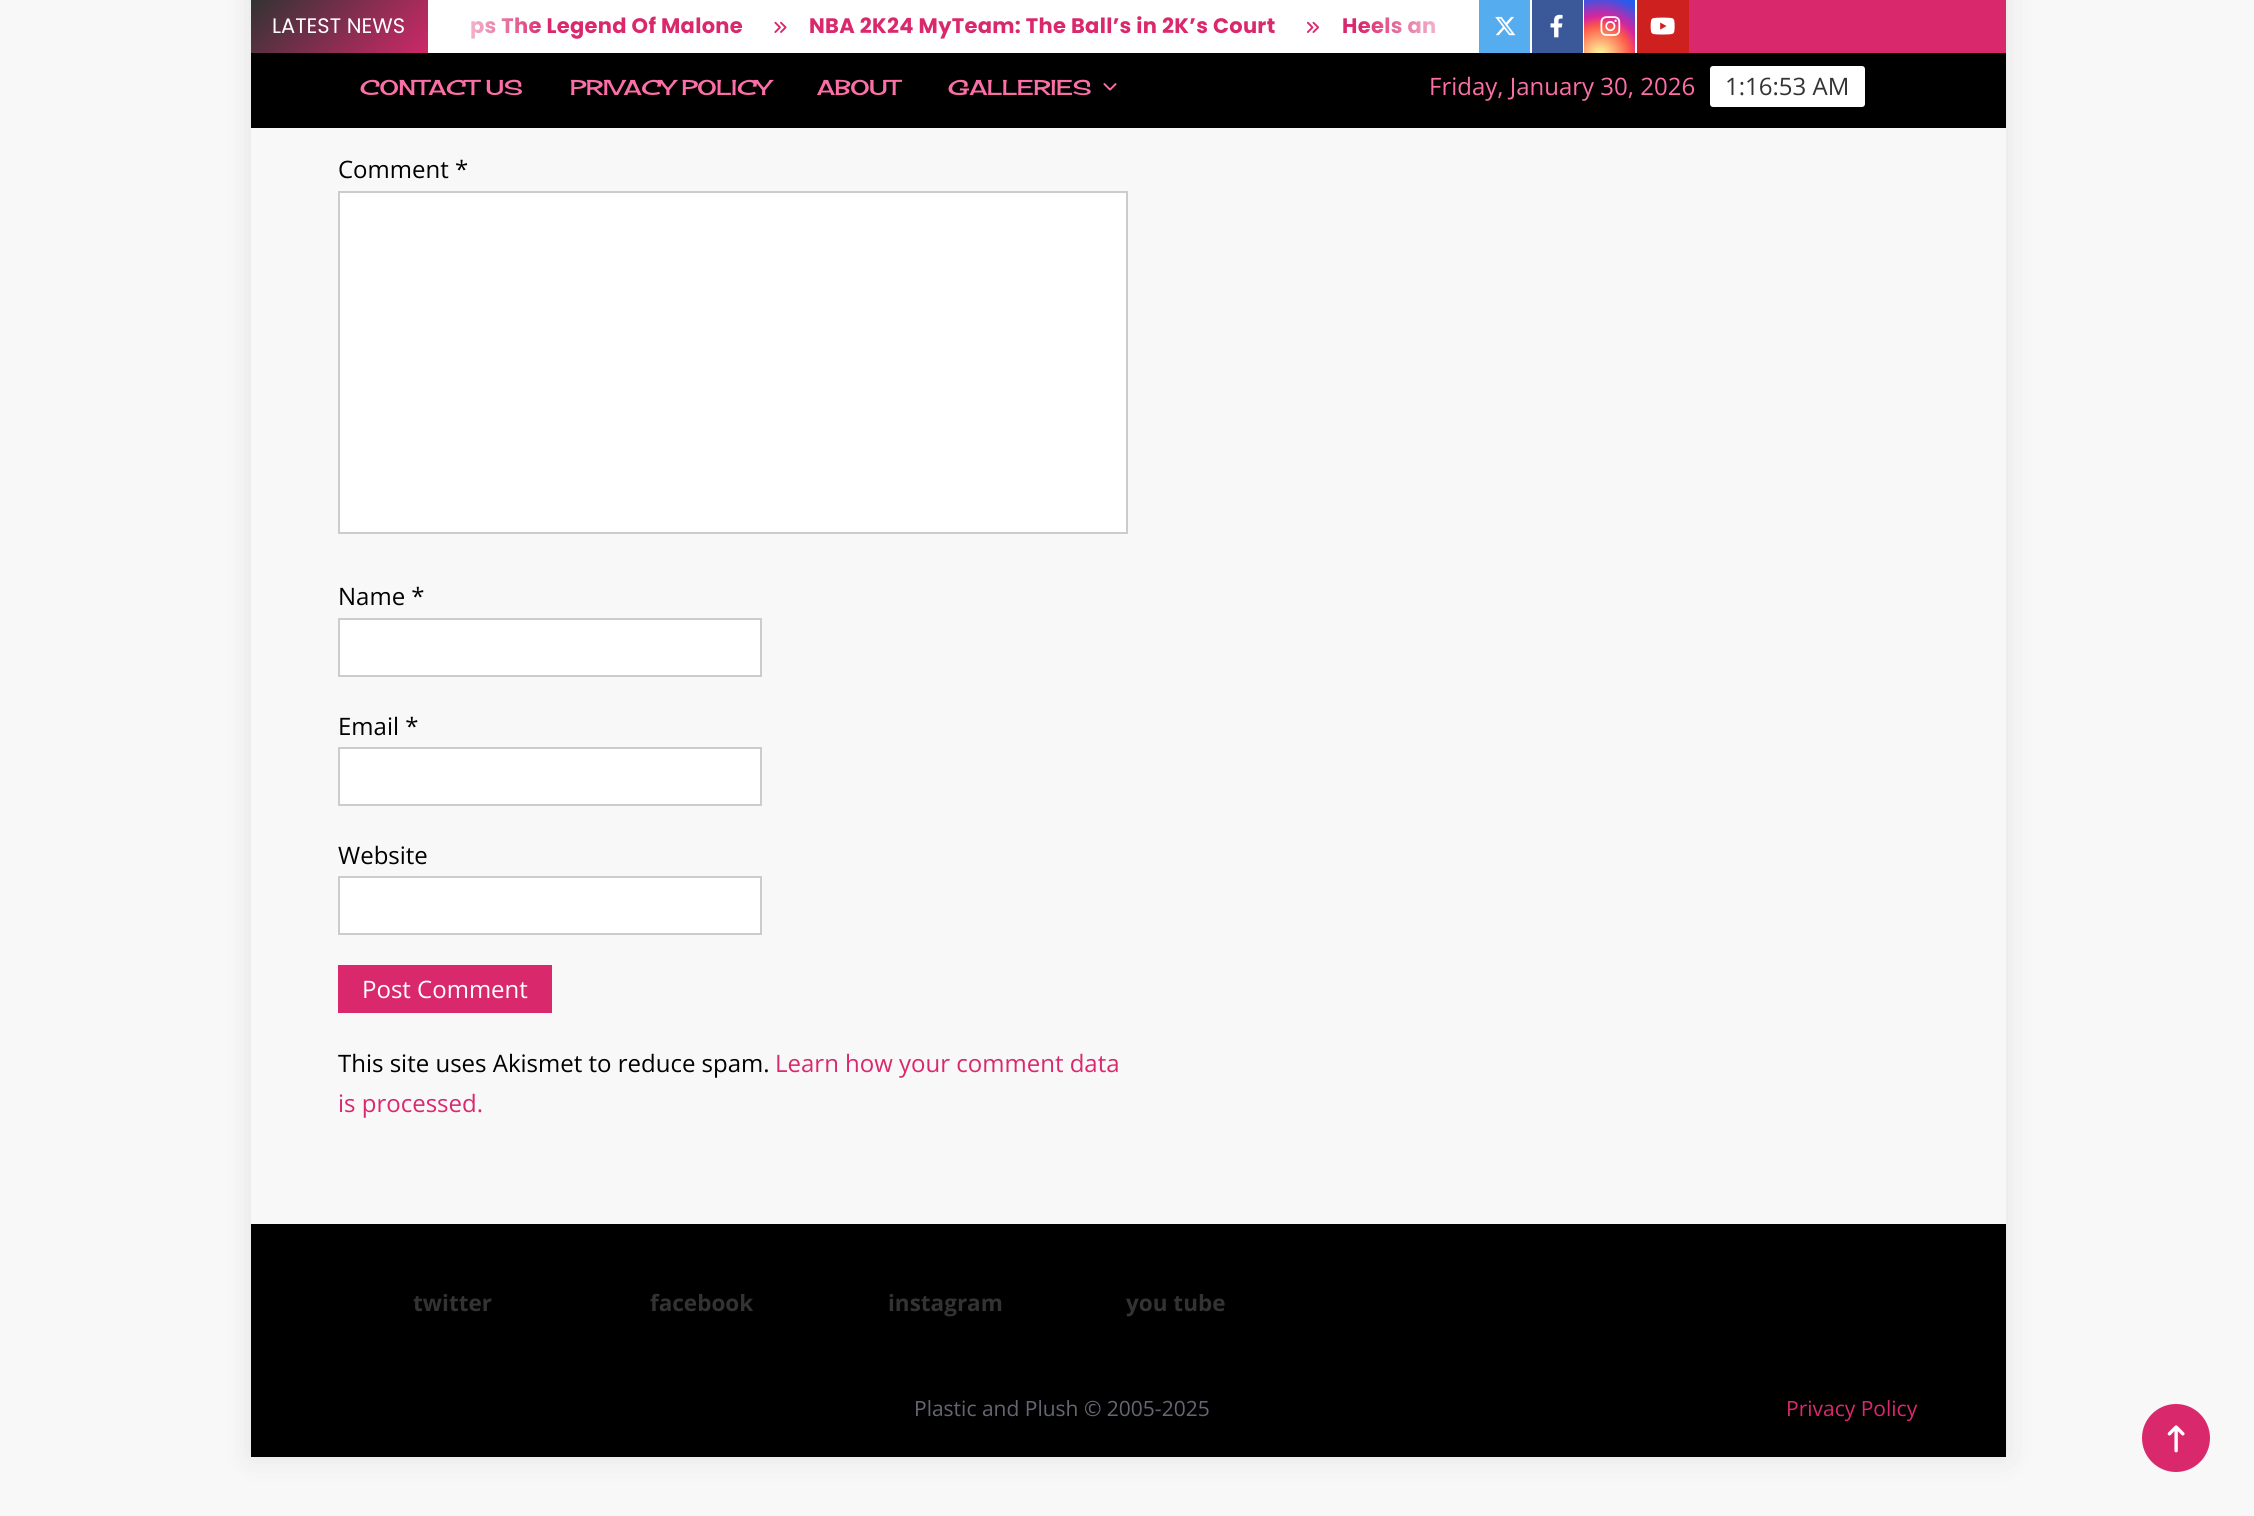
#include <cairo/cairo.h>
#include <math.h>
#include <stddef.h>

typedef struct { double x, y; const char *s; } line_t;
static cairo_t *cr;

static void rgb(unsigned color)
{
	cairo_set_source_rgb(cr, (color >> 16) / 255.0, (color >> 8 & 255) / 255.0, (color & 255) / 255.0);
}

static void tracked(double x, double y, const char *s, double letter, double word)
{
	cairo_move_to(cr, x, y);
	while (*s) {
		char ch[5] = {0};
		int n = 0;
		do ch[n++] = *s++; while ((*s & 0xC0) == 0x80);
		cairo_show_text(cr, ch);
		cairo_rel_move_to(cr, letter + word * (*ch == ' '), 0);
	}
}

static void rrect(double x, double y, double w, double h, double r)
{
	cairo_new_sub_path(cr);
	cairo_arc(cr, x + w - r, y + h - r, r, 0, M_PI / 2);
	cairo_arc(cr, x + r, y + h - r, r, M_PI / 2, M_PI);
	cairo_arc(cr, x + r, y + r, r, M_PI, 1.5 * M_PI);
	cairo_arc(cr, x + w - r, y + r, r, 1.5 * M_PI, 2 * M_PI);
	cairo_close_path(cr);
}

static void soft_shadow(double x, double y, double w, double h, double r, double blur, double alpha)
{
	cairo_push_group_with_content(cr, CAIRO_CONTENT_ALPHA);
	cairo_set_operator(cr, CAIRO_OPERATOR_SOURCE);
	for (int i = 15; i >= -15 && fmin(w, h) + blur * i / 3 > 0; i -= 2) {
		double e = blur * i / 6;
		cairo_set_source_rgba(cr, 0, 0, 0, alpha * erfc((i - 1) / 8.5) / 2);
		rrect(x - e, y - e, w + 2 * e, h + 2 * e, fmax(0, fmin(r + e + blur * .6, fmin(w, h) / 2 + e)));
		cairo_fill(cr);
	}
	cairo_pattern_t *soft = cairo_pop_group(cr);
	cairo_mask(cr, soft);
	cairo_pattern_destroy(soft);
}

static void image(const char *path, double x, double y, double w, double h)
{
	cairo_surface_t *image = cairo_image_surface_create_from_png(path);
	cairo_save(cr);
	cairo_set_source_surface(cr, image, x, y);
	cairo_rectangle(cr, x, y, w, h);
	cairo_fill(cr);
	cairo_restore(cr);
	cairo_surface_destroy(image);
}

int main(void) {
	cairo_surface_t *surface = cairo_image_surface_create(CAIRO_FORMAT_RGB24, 2254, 1516);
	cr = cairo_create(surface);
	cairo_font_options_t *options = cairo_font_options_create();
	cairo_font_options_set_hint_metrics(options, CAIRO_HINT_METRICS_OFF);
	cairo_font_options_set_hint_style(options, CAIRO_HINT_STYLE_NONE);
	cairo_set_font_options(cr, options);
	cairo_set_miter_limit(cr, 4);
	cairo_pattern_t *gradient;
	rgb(0xf8f8f8);
	cairo_paint(cr);
	cairo_save(cr);
	cairo_set_fill_rule(cr, CAIRO_FILL_RULE_EVEN_ODD);
	cairo_new_path(cr);
	cairo_move_to(cr, 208, 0);
	cairo_line_to(cr, 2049, 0);
	cairo_line_to(cr, 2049, 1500);
	cairo_line_to(cr, 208, 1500);
	cairo_close_path(cr);
	cairo_move_to(cr, 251, -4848);
	cairo_line_to(cr, 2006, -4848);
	cairo_line_to(cr, 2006, 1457);
	cairo_line_to(cr, 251, 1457);
	cairo_close_path(cr);
	cairo_clip(cr);
	rgb(0x1a1a1a);
	soft_shadow(251, -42, 1755, 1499, 0, 14, 0.1);
	cairo_restore(cr);
	rgb(0xffffff);
	cairo_rectangle(cr, 429, 0, 1049, 53);
	cairo_fill(cr);
	gradient = cairo_pattern_create_linear(795, 216, 414, -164);
	cairo_pattern_add_color_stop_rgba(gradient, 0, 0.855, 0.157, 0.427, 1);
	cairo_pattern_add_color_stop_rgba(gradient, 0.33, 0.933, 0.933, 0.933, 1);
	cairo_pattern_add_color_stop_rgba(gradient, 0.67, 0.855, 0.157, 0.427, 1);
	cairo_pattern_add_color_stop_rgba(gradient, 1, 0.2, 0.2, 0.2, 1);
	cairo_set_source(cr, gradient);
	cairo_pattern_destroy(gradient);
	cairo_rectangle(cr, 251, 0, 177, 53);
	cairo_fill(cr);
	image("img/1.png", 774, 21, 13, 12);
	image("img/2.png", 1306, 21, 13, 12);
	rgb(0xda286d);
	cairo_rectangle(cr, 1689, 0, 317, 53);
	cairo_fill(cr);
	rgb(0x55acee);
	cairo_rectangle(cr, 1479, 0, 51, 53);
	cairo_fill(cr);
	image("img/3.png", 1495, 16, 21, 20);
	rgb(0xffffff);
	cairo_rectangle(cr, 1530, 0, 2, 53);
	cairo_fill(cr);
	rgb(0x3b5999);
	cairo_rectangle(cr, 1532, 0, 51, 53);
	cairo_fill(cr);
	image("img/4.png", 1550, 14, 13, 24);
	rgb(0xffffff);
	cairo_rectangle(cr, 1583, 0, 1, 53);
	cairo_fill(cr);
	gradient = cairo_pattern_create_radial(1600, 56, 0, 1600, 56, 67);
	cairo_pattern_add_color_stop_rgba(gradient, 0, 0.992, 0.957, 0.592, 1);
	cairo_pattern_add_color_stop_rgba(gradient, 0.05, 0.992, 0.957, 0.592, 1);
	cairo_pattern_add_color_stop_rgba(gradient, 0.45, 0.992, 0.349, 0.286, 1);
	cairo_pattern_add_color_stop_rgba(gradient, 0.6, 0.839, 0.141, 0.624, 1);
	cairo_pattern_add_color_stop_rgba(gradient, 0.9, 0.157, 0.353, 0.922, 1);
	cairo_set_source(cr, gradient);
	cairo_pattern_destroy(gradient);
	cairo_rectangle(cr, 1584, 0, 51, 53);
	cairo_fill(cr);
	image("img/5.png", 1600, 16, 21, 20);
	rgb(0xffffff);
	cairo_rectangle(cr, 1635, 0, 2, 53);
	cairo_fill(cr);
	rgb(0xcd201f);
	cairo_rectangle(cr, 1637, 0, 52, 53);
	cairo_fill(cr);
	image("img/6.png", 1650, 17, 25, 18);
	rgb(0x000000);
	cairo_rectangle(cr, 251, 53, 1755, 75);
	cairo_fill(cr);
	image("img/7.png", 1103, 83, 14, 8);
	rgb(0xffffff);
	rrect(1710, 66, 155, 41, 3);
	cairo_fill(cr);
	cairo_rectangle(cr, 339, 192, 788, 341);
	cairo_fill_preserve(cr);
	rgb(0xcccccc);
	cairo_stroke(cr);
	rgb(0xffffff);
	cairo_rectangle(cr, 339, 619, 422, 57);
	cairo_fill_preserve(cr);
	rgb(0xcccccc);
	cairo_stroke(cr);
	rgb(0xffffff);
	cairo_rectangle(cr, 339, 748, 422, 57);
	cairo_fill_preserve(cr);
	rgb(0xcccccc);
	cairo_stroke(cr);
	rgb(0xffffff);
	cairo_rectangle(cr, 339, 877, 422, 57);
	cairo_fill_preserve(cr);
	rgb(0xcccccc);
	cairo_stroke(cr);
	rgb(0xda286d);
	cairo_rectangle(cr, 338, 965, 214, 48);
	cairo_fill(cr);
	rgb(0x000000);
	cairo_rectangle(cr, 251, 1224, 1755, 233);
	cairo_fill(cr);
	rgb(0xda286d);
	cairo_arc(cr, 2176, 1438, 34, 0, 2 * M_PI);
	cairo_fill(cr);
	image("img/8.png", 2167, 1425, 18, 28);
	cairo_select_font_face(cr, "Poppins", CAIRO_FONT_SLANT_NORMAL, CAIRO_FONT_WEIGHT_NORMAL);
	cairo_set_font_size(cr, 21);
	rgb(0xffffff);
	cairo_move_to(cr, 272, 33);
	cairo_show_text(cr, "LATEST NEWS");
	cairo_select_font_face(cr, "Poppins", CAIRO_FONT_SLANT_NORMAL, CAIRO_FONT_WEIGHT_BOLD);
	rgb(0xda286d);
	tracked(470, 33, "ps The Legend Of Malone", 0.3, 0);
	gradient = cairo_pattern_create_linear(428, 26, 548, 26);
	cairo_pattern_add_color_stop_rgba(gradient, 0, 1, 1, 1, 1);
	cairo_pattern_add_color_stop_rgba(gradient, 1, 1, 1, 1, 0);
	cairo_set_source(cr, gradient);
	cairo_pattern_destroy(gradient);
	cairo_rectangle(cr, 428, 0, 113, 53);
	cairo_fill(cr);
	rgb(0xda286d);
	tracked(809, 33, "NBA 2K24 MyTeam: The Ball’s in 2K’s Court", 0.3, 0);
	tracked(1342, 33, "Heels an", 0.3, 0);
	gradient = cairo_pattern_create_linear(1359, 26, 1479, 26);
	cairo_pattern_add_color_stop_rgba(gradient, 0, 1, 1, 1, 0);
	cairo_pattern_add_color_stop_rgba(gradient, 1, 1, 1, 1, 1);
	cairo_set_source(cr, gradient);
	cairo_pattern_destroy(gradient);
	cairo_rectangle(cr, 1362, 0, 117, 53);
	cairo_fill(cr);
	cairo_select_font_face(cr, "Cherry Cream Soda", CAIRO_FONT_SLANT_NORMAL, CAIRO_FONT_WEIGHT_NORMAL);
	rgb(0xfc6fa6);
	{
		static const line_t items[] = {
			{360, 95, "CONTACT US"},
			{570, 95, "PRIVACY POLICY"},
			{817, 95, "ABOUT"},
			{948, 95, "GALLERIES"},
		};
		for (size_t i = 0; i < sizeof items / sizeof *items; i++) {
			cairo_move_to(cr, items[i].x, items[i].y);
			cairo_show_text(cr, items[i].s);
		}
	}
	cairo_select_font_face(cr, "Open Sans", CAIRO_FONT_SLANT_NORMAL, CAIRO_FONT_WEIGHT_NORMAL);
	cairo_set_font_size(cr, 24);
	cairo_move_to(cr, 1429, 95);
	cairo_show_text(cr, "Friday, January 30, 2026");
	rgb(0x333333);
	cairo_move_to(cr, 1725, 95);
	cairo_show_text(cr, "1:16:53 AM");
	rgb(0x000000);
	{
		static const line_t items[] = {
			{338, 178, "Comment *"},
			{338, 605, "Name *"},
			{338, 735, "Email *"},
			{338, 864, "Website"},
		};
		for (size_t i = 0; i < sizeof items / sizeof *items; i++) {
			cairo_move_to(cr, items[i].x, items[i].y);
			cairo_show_text(cr, items[i].s);
		}
	}
	rgb(0xffffff);
	cairo_move_to(cr, 362, 998);
	cairo_show_text(cr, "Post Comment");
	rgb(0x000000);
	cairo_move_to(cr, 338, 1072);
	cairo_show_text(cr, "This site uses Akismet to reduce spam.");
	rgb(0xda286d);
	cairo_move_to(cr, 775, 1072);
	cairo_show_text(cr, "Learn how your comment data");
	cairo_move_to(cr, 338, 1112);
	cairo_show_text(cr, "is processed.");
	cairo_select_font_face(cr, "Open Sans", CAIRO_FONT_SLANT_NORMAL, CAIRO_FONT_WEIGHT_BOLD);
	cairo_set_font_size(cr, 22.5);
	rgb(0x333333);
	{
		static const line_t items[] = {
			{413, 1311, "twitter"},
			{650, 1311, "facebook"},
			{888, 1311, "instagram"},
			{1126, 1311, "you tube"},
		};
		for (size_t i = 0; i < sizeof items / sizeof *items; i++) {
			cairo_move_to(cr, items[i].x, items[i].y);
			cairo_show_text(cr, items[i].s);
		}
	}
	cairo_select_font_face(cr, "Open Sans", CAIRO_FONT_SLANT_NORMAL, CAIRO_FONT_WEIGHT_NORMAL);
	cairo_set_font_size(cr, 21);
	rgb(0x646770);
	cairo_move_to(cr, 914, 1416);
	cairo_show_text(cr, "Plastic and Plush © 2005-2025");
	rgb(0xda286d);
	cairo_move_to(cr, 1786, 1416);
	cairo_show_text(cr, "Privacy Policy");
	cairo_surface_write_to_png(surface, "page.png");
	cairo_font_options_destroy(options);
	cairo_destroy(cr);
	cairo_surface_destroy(surface);
	return 0;
}
